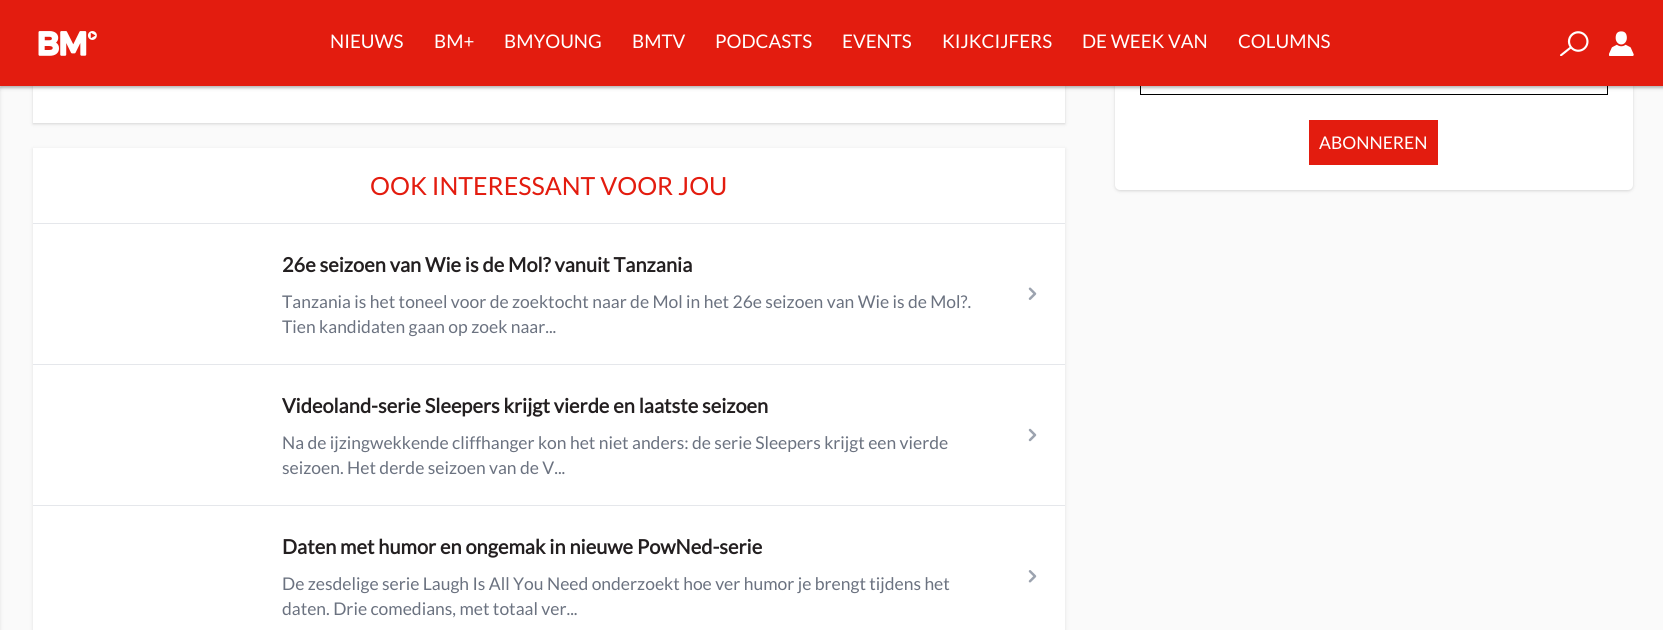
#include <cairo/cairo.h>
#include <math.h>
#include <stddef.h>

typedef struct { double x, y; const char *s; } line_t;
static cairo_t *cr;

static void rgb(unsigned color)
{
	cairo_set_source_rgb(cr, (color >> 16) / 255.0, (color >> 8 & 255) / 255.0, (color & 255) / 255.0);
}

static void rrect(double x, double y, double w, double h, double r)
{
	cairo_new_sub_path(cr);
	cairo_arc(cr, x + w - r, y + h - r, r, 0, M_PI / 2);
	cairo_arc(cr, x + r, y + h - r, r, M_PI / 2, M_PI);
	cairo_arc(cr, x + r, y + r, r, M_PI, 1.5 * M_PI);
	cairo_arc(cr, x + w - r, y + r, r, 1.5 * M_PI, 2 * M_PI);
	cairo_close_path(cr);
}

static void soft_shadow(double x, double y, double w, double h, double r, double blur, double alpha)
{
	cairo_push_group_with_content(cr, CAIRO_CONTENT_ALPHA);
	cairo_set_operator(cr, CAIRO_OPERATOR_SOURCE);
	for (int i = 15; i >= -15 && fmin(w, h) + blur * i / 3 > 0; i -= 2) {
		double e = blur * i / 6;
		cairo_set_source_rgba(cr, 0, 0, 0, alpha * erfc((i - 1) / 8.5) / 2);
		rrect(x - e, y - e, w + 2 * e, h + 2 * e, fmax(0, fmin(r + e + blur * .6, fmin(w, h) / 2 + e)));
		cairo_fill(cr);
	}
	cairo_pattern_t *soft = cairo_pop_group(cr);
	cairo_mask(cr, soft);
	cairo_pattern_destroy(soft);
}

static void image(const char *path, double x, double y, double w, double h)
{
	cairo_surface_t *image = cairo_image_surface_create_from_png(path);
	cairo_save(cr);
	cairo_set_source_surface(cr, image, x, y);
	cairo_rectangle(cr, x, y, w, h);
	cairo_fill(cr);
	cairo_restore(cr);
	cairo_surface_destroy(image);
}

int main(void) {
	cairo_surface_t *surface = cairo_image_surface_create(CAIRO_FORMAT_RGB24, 1663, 630);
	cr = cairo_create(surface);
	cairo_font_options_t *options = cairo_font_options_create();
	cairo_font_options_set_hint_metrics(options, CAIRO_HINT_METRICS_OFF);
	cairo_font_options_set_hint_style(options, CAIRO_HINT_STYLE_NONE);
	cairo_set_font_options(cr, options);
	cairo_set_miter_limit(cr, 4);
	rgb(0xfafafa);
	cairo_paint(cr);
	rgb(0x000000);
	soft_shadow(-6, 1, 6, 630, 0, 2, 0.1);
	soft_shadow(1115, -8, 518, 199, 5, 1, 0.06);
	soft_shadow(1115, -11, 518, 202, 5, 2, 0.1);
	rgb(0xffffff);
	rrect(1115, -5, 518, 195, 5);
	cairo_fill(cr);
	cairo_rectangle(cr, 1140.5, 56.5, 467, 38);
	rgb(0x000000);
	cairo_set_line_width(cr, 1);
	cairo_stroke(cr);
	rgb(0x000000);
	soft_shadow(33, -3, 1032, 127, 0, 1, 0.06);
	soft_shadow(33, -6, 1032, 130, 0, 2, 0.1);
	rgb(0xffffff);
	cairo_rectangle(cr, 33, 86, 1032, 37);
	cairo_fill(cr);
	rgb(0x000000);
	soft_shadow(0, 1, 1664, 87, 0, 1, 0.06);
	soft_shadow(0, 1, 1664, 87, 0, 2, 0.1);
	soft_shadow(0, 1, 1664, 87, 0, 1, 0.06);
	soft_shadow(0, 1, 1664, 87, 0, 2, 0.1);
	rgb(0xe31c0f);
	cairo_rectangle(cr, 0, 0, 1663, 86);
	cairo_fill(cr);
	image("img/1.png", 38, 31, 59, 25);
	image("img/2.png", 1560, 31, 29, 25);
	image("img/3.png", 1609, 31, 25, 25);
	cairo_rectangle(cr, 1309, 120, 129, 45);
	cairo_fill(cr);
	rgb(0x000000);
	soft_shadow(33, 149, 1032, 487, 0, 2, 0.1);
	rgb(0xffffff);
	cairo_rectangle(cr, 33, 148, 1032, 482);
	cairo_fill(cr);
	rgb(0xe5e7eb);
	cairo_rectangle(cr, 33, 223, 1032, 1);
	cairo_fill(cr);
	image("img/4.png", 1028, 287, 9, 13);
	cairo_rectangle(cr, 33, 364, 1032, 1);
	cairo_fill(cr);
	image("img/5.png", 1028, 428, 9, 14);
	cairo_rectangle(cr, 33, 505, 1032, 1);
	cairo_fill(cr);
	image("img/6.png", 1028, 570, 9, 13);
	cairo_select_font_face(cr, "Lato", CAIRO_FONT_SLANT_NORMAL, CAIRO_FONT_WEIGHT_NORMAL);
	cairo_set_font_size(cr, 18.75);
	rgb(0xffffff);
	{
		static const line_t items[] = {
			{330, 48, "NIEUWS"},
			{434, 48, "BM+"},
			{504, 48, "BMYOUNG"},
			{632, 48, "BMTV"},
			{715, 48, "PODCASTS"},
			{842, 48, "EVENTS"},
			{942, 48, "KIJKCIJFERS"},
			{1082, 48, "DE WEEK VAN"},
			{1238, 48, "COLUMNS"},
		};
		for (size_t i = 0; i < sizeof items / sizeof *items; i++) {
			cairo_move_to(cr, items[i].x, items[i].y);
			cairo_show_text(cr, items[i].s);
		}
	}
	cairo_set_font_size(cr, 17.5);
	cairo_move_to(cr, 1319, 149);
	cairo_show_text(cr, "ABONNEREN");
	cairo_set_font_size(cr, 25);
	rgb(0xe31c0f);
	cairo_move_to(cr, 370, 195);
	cairo_show_text(cr, "OOK INTERESSANT VOOR JOU");
	cairo_select_font_face(cr, "Lato", CAIRO_FONT_SLANT_NORMAL, CAIRO_FONT_WEIGHT_BOLD);
	cairo_set_font_size(cr, 20);
	rgb(0x231f20);
	cairo_move_to(cr, 282, 272);
	cairo_show_text(cr, "26e seizoen van Wie is de Mol? vanuit Tanzania");
	cairo_select_font_face(cr, "Lato", CAIRO_FONT_SLANT_NORMAL, CAIRO_FONT_WEIGHT_NORMAL);
	cairo_set_font_size(cr, 17.5);
	rgb(0x6b7280);
	cairo_move_to(cr, 282, 308);
	cairo_show_text(cr, "Tanzania is het toneel voor de zoektocht naar de Mol in het 26e seizoen van Wie is de Mol?.");
	cairo_move_to(cr, 282, 333);
	cairo_show_text(cr, "Tien kandidaten gaan op zoek naar...");
	cairo_select_font_face(cr, "Lato", CAIRO_FONT_SLANT_NORMAL, CAIRO_FONT_WEIGHT_BOLD);
	cairo_set_font_size(cr, 20);
	rgb(0x231f20);
	cairo_move_to(cr, 282, 413);
	cairo_show_text(cr, "Videoland-serie Sleepers krijgt vierde en laatste seizoen");
	cairo_select_font_face(cr, "Lato", CAIRO_FONT_SLANT_NORMAL, CAIRO_FONT_WEIGHT_NORMAL);
	cairo_set_font_size(cr, 17.5);
	rgb(0x6b7280);
	cairo_move_to(cr, 282, 449);
	cairo_show_text(cr, "Na de ijzingwekkende cliffhanger kon het niet anders: de serie Sleepers krijgt een vierde");
	cairo_move_to(cr, 282, 474);
	cairo_show_text(cr, "seizoen. Het derde seizoen van de V...");
	cairo_select_font_face(cr, "Lato", CAIRO_FONT_SLANT_NORMAL, CAIRO_FONT_WEIGHT_BOLD);
	cairo_set_font_size(cr, 20);
	rgb(0x231f20);
	cairo_move_to(cr, 282, 554);
	cairo_show_text(cr, "Daten met humor en ongemak in nieuwe PowNed-serie");
	cairo_select_font_face(cr, "Lato", CAIRO_FONT_SLANT_NORMAL, CAIRO_FONT_WEIGHT_NORMAL);
	cairo_set_font_size(cr, 17.5);
	rgb(0x6b7280);
	cairo_move_to(cr, 282, 590);
	cairo_show_text(cr, "De zesdelige serie Laugh Is All You Need onderzoekt hoe ver humor je brengt tijdens het");
	cairo_move_to(cr, 282, 615);
	cairo_show_text(cr, "daten. Drie comedians, met totaal ver...");
	cairo_surface_write_to_png(surface, "page.png");
	cairo_font_options_destroy(options);
	cairo_destroy(cr);
	cairo_surface_destroy(surface);
	return 0;
}
